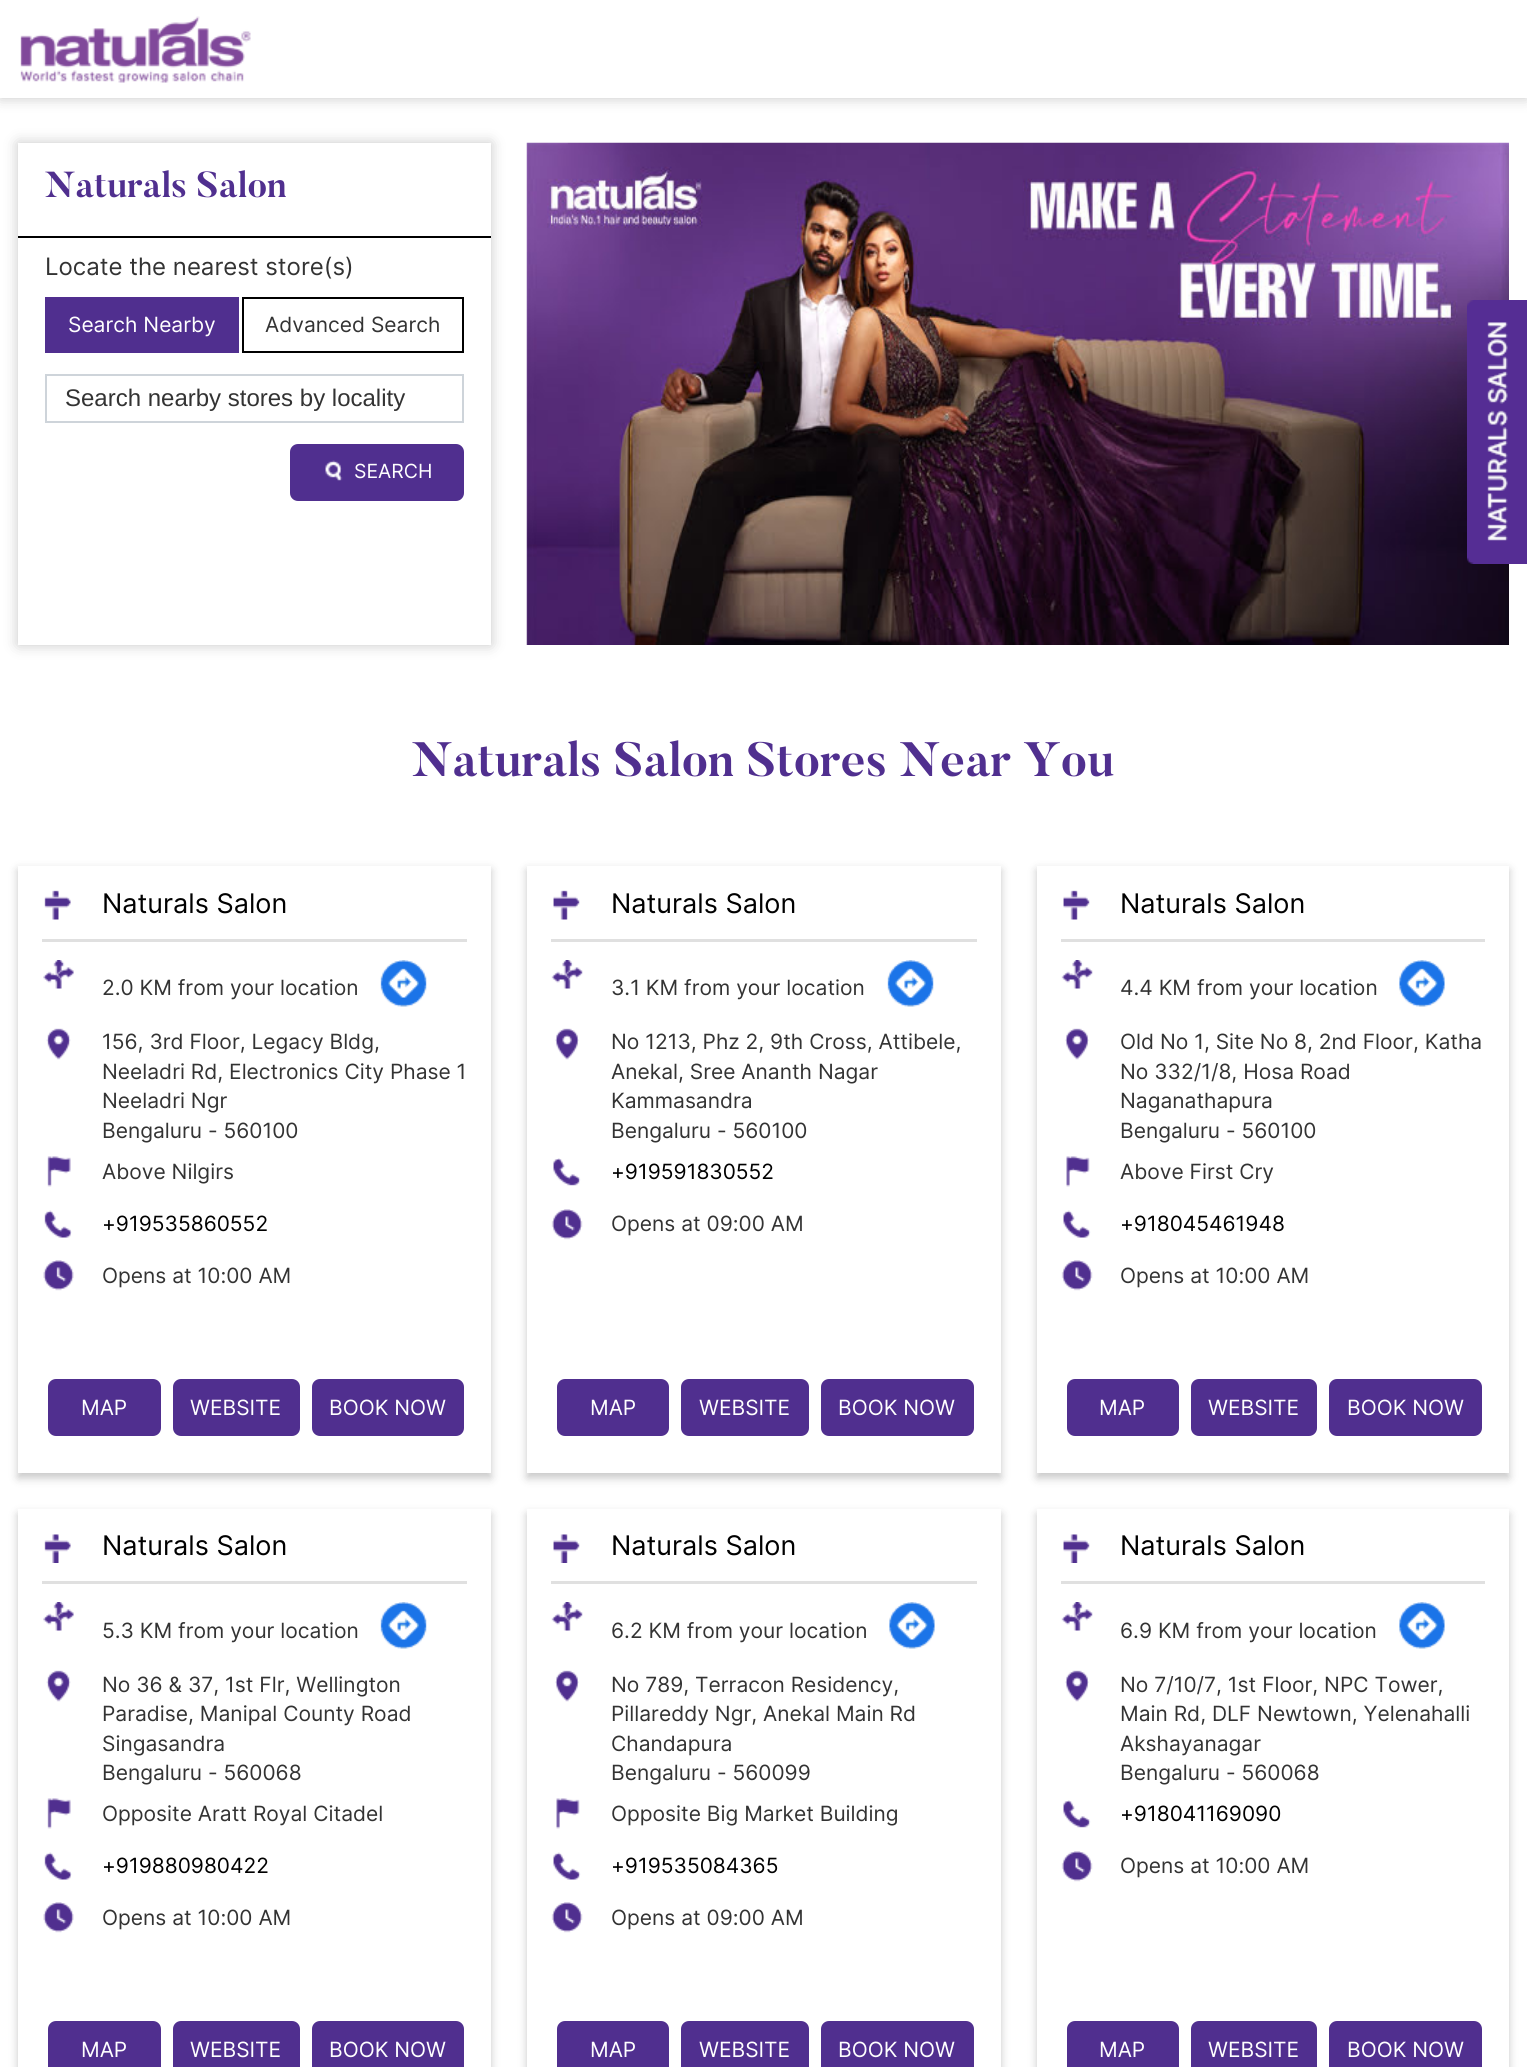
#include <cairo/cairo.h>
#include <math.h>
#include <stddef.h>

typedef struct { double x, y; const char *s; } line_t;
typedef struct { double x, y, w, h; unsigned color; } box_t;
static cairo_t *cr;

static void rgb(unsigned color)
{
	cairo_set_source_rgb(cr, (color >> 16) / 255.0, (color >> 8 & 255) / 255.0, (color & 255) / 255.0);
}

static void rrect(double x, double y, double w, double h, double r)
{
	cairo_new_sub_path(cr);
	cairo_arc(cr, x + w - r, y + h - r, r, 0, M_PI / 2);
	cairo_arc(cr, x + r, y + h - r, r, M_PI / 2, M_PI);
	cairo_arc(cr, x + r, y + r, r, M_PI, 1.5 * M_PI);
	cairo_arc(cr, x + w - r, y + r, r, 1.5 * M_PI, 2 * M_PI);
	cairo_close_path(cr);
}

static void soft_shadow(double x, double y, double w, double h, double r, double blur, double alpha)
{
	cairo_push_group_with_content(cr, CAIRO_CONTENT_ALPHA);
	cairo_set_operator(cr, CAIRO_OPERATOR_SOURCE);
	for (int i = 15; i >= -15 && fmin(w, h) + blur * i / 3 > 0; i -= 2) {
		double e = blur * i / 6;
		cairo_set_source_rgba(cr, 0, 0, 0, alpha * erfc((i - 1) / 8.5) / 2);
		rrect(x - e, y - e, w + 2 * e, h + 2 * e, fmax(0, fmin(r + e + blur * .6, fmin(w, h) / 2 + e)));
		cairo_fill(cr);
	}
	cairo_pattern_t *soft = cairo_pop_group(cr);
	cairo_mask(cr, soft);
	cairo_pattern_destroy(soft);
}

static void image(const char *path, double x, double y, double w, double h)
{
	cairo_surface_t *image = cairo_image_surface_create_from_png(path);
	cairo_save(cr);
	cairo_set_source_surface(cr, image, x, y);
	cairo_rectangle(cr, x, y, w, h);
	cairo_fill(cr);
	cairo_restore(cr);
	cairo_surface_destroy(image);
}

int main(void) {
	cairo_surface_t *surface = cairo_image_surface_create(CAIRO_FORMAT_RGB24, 1527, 2067);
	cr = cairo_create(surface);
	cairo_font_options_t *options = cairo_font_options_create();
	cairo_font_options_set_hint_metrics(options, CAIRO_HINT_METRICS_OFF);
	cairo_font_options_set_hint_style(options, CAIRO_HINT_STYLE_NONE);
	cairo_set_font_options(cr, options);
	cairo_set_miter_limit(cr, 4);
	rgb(0xffffff);
	cairo_paint(cr);
	rgb(0x000000);
	soft_shadow(0, 0, 1527, 98, 0, 7, 0.22);
	rgb(0xffffff);
	cairo_rectangle(cr, 0, 0, 1527, 98);
	cairo_fill(cr);
	image("img/1.png", 20, 16, 231, 67);
	image("img/4.png", 526, 142, 983, 503);
	cairo_save(cr);
	cairo_rectangle(cr, 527, 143, 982, 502);
	cairo_clip(cr);
	rgb(0x000000);
	soft_shadow(1509, 147, 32, 503, 0, 4.5, 0.16);
	soft_shadow(1509, 147, 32, 503, 0, 4.5, 0.16);
	cairo_restore(cr);
	image("img/2.png", 1467, 300, 60, 264);
	rgb(0x000000);
	soft_shadow(18, 143, 473, 502, 0, 7, 0.22);
	{
		static const box_t items[] = {
			{18, 143, 473, 502, 0xffffff},
			{18, 236, 473, 2, 0x000000},
			{45, 297, 194, 56, 0x502f8f},
		};
		for (size_t i = 0; i < sizeof items / sizeof *items; i++) {
			rgb(items[i].color);
			cairo_rectangle(cr, items[i].x, items[i].y, items[i].w, items[i].h);
			cairo_fill(cr);
		}
	}
	cairo_rectangle(cr, 243, 298, 220, 54);
	rgb(0x000000);
	cairo_stroke(cr);
	cairo_rectangle(cr, 46, 375, 417, 47);
	rgb(0xced4da);
	cairo_stroke(cr);
	rgb(0x502f8f);
	rrect(290, 444, 174, 57, 8);
	cairo_fill(cr);
	image("img/3.png", 325, 460, 18, 21);
	rgb(0x000000);
	soft_shadow(18, 870, 473, 608, 0, 4.5, 0.22);
	rgb(0xffffff);
	cairo_rectangle(cr, 18, 866, 473, 607);
	cairo_fill(cr);
	rgb(0xe0e0e0);
	cairo_rectangle(cr, 42, 939, 425, 3);
	cairo_fill(cr);
	image("img/5.png", 44, 890, 27, 30);
	image("img/6.png", 43, 960, 31, 29);
	image("img/7.png", 380, 960, 47, 47);
	image("img/8.png", 46, 1028, 25, 32);
	image("img/9.png", 47, 1156, 24, 31);
	image("img/10.png", 44, 1210, 28, 28);
	image("img/11.png", 43, 1260, 31, 31);
	rgb(0x502f8f);
	rrect(48, 1379, 113, 57, 8);
	cairo_fill(cr);
	rrect(173, 1379, 127, 57, 8);
	cairo_fill(cr);
	rrect(312, 1379, 152, 57, 8);
	cairo_fill(cr);
	rgb(0x000000);
	soft_shadow(527, 870, 474, 608, 0, 4.5, 0.22);
	rgb(0xffffff);
	cairo_rectangle(cr, 527, 866, 474, 607);
	cairo_fill(cr);
	rgb(0xe0e0e0);
	cairo_rectangle(cr, 551, 939, 426, 3);
	cairo_fill(cr);
	image("img/12.png", 553, 890, 27, 30);
	image("img/13.png", 551, 960, 32, 29);
	image("img/14.png", 887, 960, 47, 47);
	image("img/15.png", 555, 1028, 24, 32);
	image("img/16.png", 553, 1158, 28, 28);
	image("img/17.png", 551, 1209, 32, 31);
	rgb(0x502f8f);
	rrect(557, 1379, 112, 57, 8);
	cairo_fill(cr);
	rrect(681, 1379, 128, 57, 8);
	cairo_fill(cr);
	rrect(821, 1379, 153, 57, 8);
	cairo_fill(cr);
	cairo_save(cr);
	cairo_set_fill_rule(cr, CAIRO_FILL_RULE_EVEN_ODD);
	cairo_new_path(cr);
	cairo_move_to(cr, 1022, 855);
	cairo_line_to(cr, 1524, 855);
	cairo_line_to(cr, 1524, 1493);
	cairo_line_to(cr, 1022, 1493);
	cairo_close_path(cr);
	cairo_move_to(cr, 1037, 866);
	cairo_line_to(cr, 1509, 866);
	cairo_line_to(cr, 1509, 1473);
	cairo_line_to(cr, 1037, 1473);
	cairo_close_path(cr);
	cairo_clip(cr);
	rgb(0x000000);
	soft_shadow(1037, 870, 472, 608, 0, 4.5, 0.22);
	cairo_restore(cr);
	rgb(0xe0e0e0);
	cairo_rectangle(cr, 1061, 939, 424, 3);
	cairo_fill(cr);
	image("img/12.png", 1063, 890, 27, 30);
	image("img/13.png", 1061, 960, 32, 29);
	image("img/18.png", 1399, 960, 46, 47);
	image("img/15.png", 1065, 1028, 24, 32);
	image("img/19.png", 1066, 1156, 24, 31);
	image("img/20.png", 1063, 1210, 28, 28);
	image("img/17.png", 1061, 1260, 32, 31);
	rgb(0x502f8f);
	rrect(1067, 1379, 112, 57, 8);
	cairo_fill(cr);
	rrect(1191, 1379, 126, 57, 8);
	cairo_fill(cr);
	rrect(1329, 1379, 153, 57, 8);
	cairo_fill(cr);
	rgb(0x000000);
	soft_shadow(18, 1514, 473, 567, 0, 4.5, 0.22);
	rgb(0xffffff);
	cairo_rectangle(cr, 18, 1509, 473, 558);
	cairo_fill(cr);
	rgb(0xe0e0e0);
	cairo_rectangle(cr, 42, 1581, 425, 3);
	cairo_fill(cr);
	image("img/21.png", 44, 1534, 27, 29);
	image("img/6.png", 43, 1602, 31, 29);
	image("img/7.png", 380, 1602, 47, 47);
	image("img/8.png", 46, 1670, 25, 32);
	image("img/9.png", 47, 1798, 24, 31);
	image("img/10.png", 44, 1852, 28, 28);
	image("img/11.png", 43, 1902, 31, 31);
	rgb(0x502f8f);
	rrect(48, 2021, 113, 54, 8);
	cairo_fill(cr);
	rrect(173, 2021, 127, 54, 8);
	cairo_fill(cr);
	rrect(312, 2021, 152, 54, 8);
	cairo_fill(cr);
	rgb(0x000000);
	soft_shadow(527, 1514, 474, 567, 0, 4.5, 0.22);
	rgb(0xffffff);
	cairo_rectangle(cr, 527, 1509, 474, 558);
	cairo_fill(cr);
	rgb(0xe0e0e0);
	cairo_rectangle(cr, 551, 1581, 426, 3);
	cairo_fill(cr);
	image("img/22.png", 553, 1534, 27, 29);
	image("img/13.png", 551, 1602, 32, 29);
	image("img/18.png", 889, 1602, 46, 47);
	image("img/15.png", 555, 1670, 24, 32);
	image("img/19.png", 556, 1798, 24, 31);
	image("img/20.png", 553, 1852, 28, 28);
	image("img/17.png", 551, 1902, 32, 31);
	rgb(0x502f8f);
	rrect(557, 2021, 112, 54, 8);
	cairo_fill(cr);
	rrect(681, 2021, 128, 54, 8);
	cairo_fill(cr);
	rrect(821, 2021, 153, 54, 8);
	cairo_fill(cr);
	cairo_save(cr);
	cairo_set_fill_rule(cr, CAIRO_FILL_RULE_EVEN_ODD);
	cairo_new_path(cr);
	cairo_move_to(cr, 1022, 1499);
	cairo_line_to(cr, 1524, 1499);
	cairo_line_to(cr, 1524, 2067);
	cairo_line_to(cr, 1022, 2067);
	cairo_close_path(cr);
	cairo_move_to(cr, 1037, 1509);
	cairo_line_to(cr, 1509, 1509);
	cairo_line_to(cr, 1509, 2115);
	cairo_line_to(cr, 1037, 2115);
	cairo_close_path(cr);
	cairo_clip(cr);
	rgb(0x000000);
	soft_shadow(1037, 1514, 472, 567, 0, 4.5, 0.22);
	cairo_restore(cr);
	rgb(0xe0e0e0);
	cairo_rectangle(cr, 1061, 1581, 424, 3);
	cairo_fill(cr);
	image("img/22.png", 1063, 1534, 27, 29);
	image("img/13.png", 1061, 1602, 32, 29);
	image("img/18.png", 1399, 1602, 46, 47);
	image("img/15.png", 1065, 1670, 24, 32);
	image("img/16.png", 1063, 1800, 28, 28);
	image("img/17.png", 1061, 1851, 32, 31);
	rgb(0x502f8f);
	rrect(1067, 2021, 112, 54, 8);
	cairo_fill(cr);
	rrect(1191, 2021, 126, 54, 8);
	cairo_fill(cr);
	rrect(1329, 2021, 153, 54, 8);
	cairo_fill(cr);
	cairo_select_font_face(cr, "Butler", CAIRO_FONT_SLANT_NORMAL, CAIRO_FONT_WEIGHT_BOLD);
	cairo_set_font_size(cr, 36);
	cairo_move_to(cr, 45, 197);
	cairo_show_text(cr, "Naturals Salon");
	cairo_select_font_face(cr, "Inter", CAIRO_FONT_SLANT_NORMAL, CAIRO_FONT_WEIGHT_NORMAL);
	cairo_set_font_size(cr, 24);
	rgb(0x333333);
	cairo_move_to(cr, 45, 275);
	cairo_show_text(cr, "Locate the nearest store(s)");
	cairo_set_font_size(cr, 21);
	rgb(0xffffff);
	cairo_move_to(cr, 68, 332);
	cairo_show_text(cr, "Search Nearby");
	rgb(0x333333);
	cairo_move_to(cr, 265, 332);
	cairo_show_text(cr, "Advanced Search");
	cairo_select_font_face(cr, "Liberation Sans", CAIRO_FONT_SLANT_NORMAL, CAIRO_FONT_WEIGHT_NORMAL);
	cairo_set_font_size(cr, 24);
	cairo_move_to(cr, 65, 406);
	cairo_show_text(cr, "Search nearby stores by locality");
	cairo_select_font_face(cr, "Inter", CAIRO_FONT_SLANT_NORMAL, CAIRO_FONT_WEIGHT_NORMAL);
	cairo_set_font_size(cr, 19.5);
	rgb(0xffffff);
	cairo_move_to(cr, 354, 478);
	cairo_show_text(cr, "SEARCH");
	cairo_select_font_face(cr, "Butler", CAIRO_FONT_SLANT_NORMAL, CAIRO_FONT_WEIGHT_BOLD);
	cairo_set_font_size(cr, 48);
	rgb(0x502f8f);
	cairo_move_to(cr, 412, 776);
	cairo_show_text(cr, "Naturals Salon Stores Near You");
	cairo_select_font_face(cr, "Inter", CAIRO_FONT_SLANT_NORMAL, CAIRO_FONT_WEIGHT_NORMAL);
	cairo_set_font_size(cr, 27);
	rgb(0x000000);
	cairo_move_to(cr, 102, 913);
	cairo_show_text(cr, "Naturals Salon");
	cairo_set_font_size(cr, 21);
	rgb(0x333333);
	{
		static const line_t items[] = {
			{102, 995, "2.0 KM from your location"},
			{102, 1049, "156, 3rd Floor, Legacy Bldg,"},
			{102, 1079, "Neeladri Rd, Electronics City Phase 1"},
			{102, 1108, "Neeladri Ngr"},
			{102, 1138, "Bengaluru - 560100"},
			{102, 1179, "Above Nilgirs"},
		};
		for (size_t i = 0; i < sizeof items / sizeof *items; i++) {
			cairo_move_to(cr, items[i].x, items[i].y);
			cairo_show_text(cr, items[i].s);
		}
	}
	rgb(0x000000);
	cairo_move_to(cr, 102, 1231);
	cairo_show_text(cr, "+919535860552");
	rgb(0x333333);
	cairo_move_to(cr, 102, 1283);
	cairo_show_text(cr, "Opens at 10:00 AM");
	rgb(0xffffff);
	{
		static const line_t items[] = {
			{81, 1415, "MAP"},
			{190, 1415, "WEBSITE"},
			{329, 1415, "BOOK NOW"},
		};
		for (size_t i = 0; i < sizeof items / sizeof *items; i++) {
			cairo_move_to(cr, items[i].x, items[i].y);
			cairo_show_text(cr, items[i].s);
		}
	}
	cairo_set_font_size(cr, 27);
	rgb(0x000000);
	cairo_move_to(cr, 611, 913);
	cairo_show_text(cr, "Naturals Salon");
	cairo_set_font_size(cr, 21);
	rgb(0x333333);
	{
		static const line_t items[] = {
			{611, 995, "3.1 KM from your location"},
			{611, 1049, "No 1213, Phz 2, 9th Cross, Attibele,"},
			{611, 1079, "Anekal, Sree Ananth Nagar"},
			{611, 1108, "Kammasandra"},
			{611, 1138, "Bengaluru - 560100"},
		};
		for (size_t i = 0; i < sizeof items / sizeof *items; i++) {
			cairo_move_to(cr, items[i].x, items[i].y);
			cairo_show_text(cr, items[i].s);
		}
	}
	rgb(0x000000);
	cairo_move_to(cr, 611, 1179);
	cairo_show_text(cr, "+919591830552");
	rgb(0x333333);
	cairo_move_to(cr, 611, 1231);
	cairo_show_text(cr, "Opens at 09:00 AM");
	rgb(0xffffff);
	{
		static const line_t items[] = {
			{590, 1415, "MAP"},
			{699, 1415, "WEBSITE"},
			{838, 1415, "BOOK NOW"},
		};
		for (size_t i = 0; i < sizeof items / sizeof *items; i++) {
			cairo_move_to(cr, items[i].x, items[i].y);
			cairo_show_text(cr, items[i].s);
		}
	}
	cairo_set_font_size(cr, 27);
	rgb(0x000000);
	cairo_move_to(cr, 1120, 913);
	cairo_show_text(cr, "Naturals Salon");
	cairo_set_font_size(cr, 21);
	rgb(0x333333);
	{
		static const line_t items[] = {
			{1120, 995, "4.4 KM from your location"},
			{1120, 1049, "Old No 1, Site No 8, 2nd Floor, Katha"},
			{1120, 1079, "No 332/1/8, Hosa Road"},
			{1120, 1108, "Naganathapura"},
			{1120, 1138, "Bengaluru - 560100"},
			{1120, 1179, "Above First Cry"},
		};
		for (size_t i = 0; i < sizeof items / sizeof *items; i++) {
			cairo_move_to(cr, items[i].x, items[i].y);
			cairo_show_text(cr, items[i].s);
		}
	}
	rgb(0x000000);
	cairo_move_to(cr, 1120, 1231);
	cairo_show_text(cr, "+918045461948");
	rgb(0x333333);
	cairo_move_to(cr, 1120, 1283);
	cairo_show_text(cr, "Opens at 10:00 AM");
	rgb(0xffffff);
	{
		static const line_t items[] = {
			{1099, 1415, "MAP"},
			{1208, 1415, "WEBSITE"},
			{1347, 1415, "BOOK NOW"},
		};
		for (size_t i = 0; i < sizeof items / sizeof *items; i++) {
			cairo_move_to(cr, items[i].x, items[i].y);
			cairo_show_text(cr, items[i].s);
		}
	}
	cairo_set_font_size(cr, 27);
	rgb(0x000000);
	cairo_move_to(cr, 102, 1555);
	cairo_show_text(cr, "Naturals Salon");
	cairo_set_font_size(cr, 21);
	rgb(0x333333);
	{
		static const line_t items[] = {
			{102, 1638, "5.3 KM from your location"},
			{102, 1692, "No 36 & 37, 1st Flr, Wellington"},
			{102, 1721, "Paradise, Manipal County Road"},
			{102, 1751, "Singasandra"},
			{102, 1780, "Bengaluru - 560068"},
			{102, 1821, "Opposite Aratt Royal Citadel"},
		};
		for (size_t i = 0; i < sizeof items / sizeof *items; i++) {
			cairo_move_to(cr, items[i].x, items[i].y);
			cairo_show_text(cr, items[i].s);
		}
	}
	rgb(0x000000);
	cairo_move_to(cr, 102, 1873);
	cairo_show_text(cr, "+919880980422");
	rgb(0x333333);
	cairo_move_to(cr, 102, 1925);
	cairo_show_text(cr, "Opens at 10:00 AM");
	rgb(0xffffff);
	{
		static const line_t items[] = {
			{81, 2057, "MAP"},
			{190, 2057, "WEBSITE"},
			{329, 2057, "BOOK NOW"},
		};
		for (size_t i = 0; i < sizeof items / sizeof *items; i++) {
			cairo_move_to(cr, items[i].x, items[i].y);
			cairo_show_text(cr, items[i].s);
		}
	}
	cairo_set_font_size(cr, 27);
	rgb(0x000000);
	cairo_move_to(cr, 611, 1555);
	cairo_show_text(cr, "Naturals Salon");
	cairo_set_font_size(cr, 21);
	rgb(0x333333);
	{
		static const line_t items[] = {
			{611, 1638, "6.2 KM from your location"},
			{611, 1692, "No 789, Terracon Residency,"},
			{611, 1721, "Pillareddy Ngr, Anekal Main Rd"},
			{611, 1751, "Chandapura"},
			{611, 1780, "Bengaluru - 560099"},
			{611, 1821, "Opposite Big Market Building"},
		};
		for (size_t i = 0; i < sizeof items / sizeof *items; i++) {
			cairo_move_to(cr, items[i].x, items[i].y);
			cairo_show_text(cr, items[i].s);
		}
	}
	rgb(0x000000);
	cairo_move_to(cr, 611, 1873);
	cairo_show_text(cr, "+919535084365");
	rgb(0x333333);
	cairo_move_to(cr, 611, 1925);
	cairo_show_text(cr, "Opens at 09:00 AM");
	rgb(0xffffff);
	{
		static const line_t items[] = {
			{590, 2057, "MAP"},
			{699, 2057, "WEBSITE"},
			{838, 2057, "BOOK NOW"},
		};
		for (size_t i = 0; i < sizeof items / sizeof *items; i++) {
			cairo_move_to(cr, items[i].x, items[i].y);
			cairo_show_text(cr, items[i].s);
		}
	}
	cairo_set_font_size(cr, 27);
	rgb(0x000000);
	cairo_move_to(cr, 1120, 1555);
	cairo_show_text(cr, "Naturals Salon");
	cairo_set_font_size(cr, 21);
	rgb(0x333333);
	{
		static const line_t items[] = {
			{1120, 1638, "6.9 KM from your location"},
			{1120, 1692, "No 7/10/7, 1st Floor, NPC Tower,"},
			{1120, 1721, "Main Rd, DLF Newtown, Yelenahalli"},
			{1120, 1751, "Akshayanagar"},
			{1120, 1780, "Bengaluru - 560068"},
		};
		for (size_t i = 0; i < sizeof items / sizeof *items; i++) {
			cairo_move_to(cr, items[i].x, items[i].y);
			cairo_show_text(cr, items[i].s);
		}
	}
	rgb(0x000000);
	cairo_move_to(cr, 1120, 1821);
	cairo_show_text(cr, "+918041169090");
	rgb(0x333333);
	cairo_move_to(cr, 1120, 1873);
	cairo_show_text(cr, "Opens at 10:00 AM");
	rgb(0xffffff);
	{
		static const line_t items[] = {
			{1099, 2057, "MAP"},
			{1208, 2057, "WEBSITE"},
			{1347, 2057, "BOOK NOW"},
		};
		for (size_t i = 0; i < sizeof items / sizeof *items; i++) {
			cairo_move_to(cr, items[i].x, items[i].y);
			cairo_show_text(cr, items[i].s);
		}
	}
	cairo_surface_write_to_png(surface, "page.png");
	cairo_font_options_destroy(options);
	cairo_destroy(cr);
	cairo_surface_destroy(surface);
	return 0;
}
